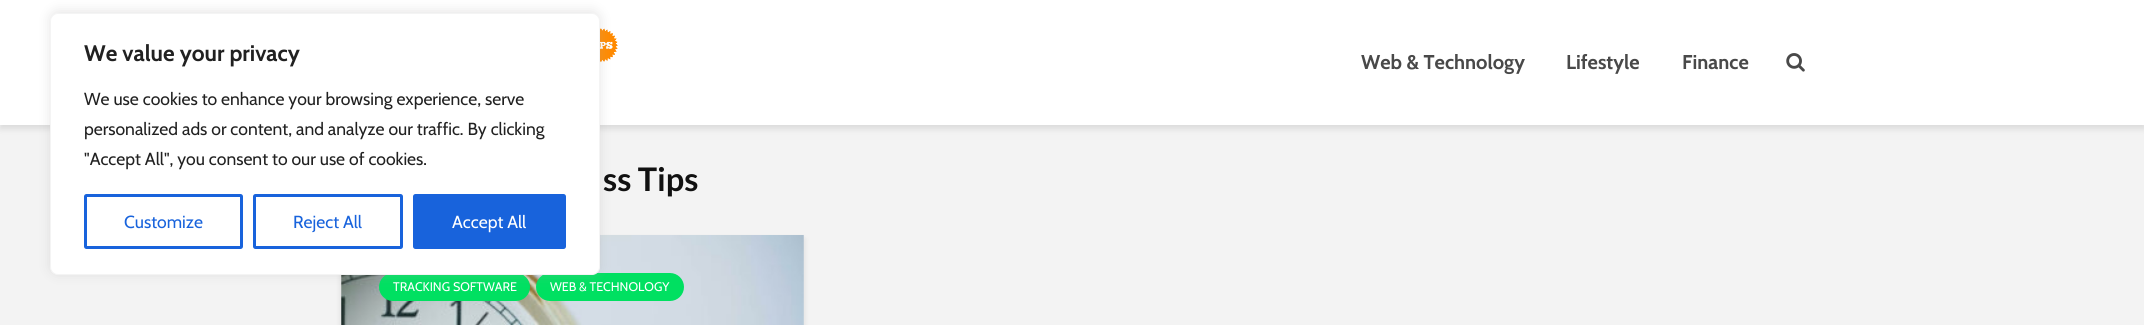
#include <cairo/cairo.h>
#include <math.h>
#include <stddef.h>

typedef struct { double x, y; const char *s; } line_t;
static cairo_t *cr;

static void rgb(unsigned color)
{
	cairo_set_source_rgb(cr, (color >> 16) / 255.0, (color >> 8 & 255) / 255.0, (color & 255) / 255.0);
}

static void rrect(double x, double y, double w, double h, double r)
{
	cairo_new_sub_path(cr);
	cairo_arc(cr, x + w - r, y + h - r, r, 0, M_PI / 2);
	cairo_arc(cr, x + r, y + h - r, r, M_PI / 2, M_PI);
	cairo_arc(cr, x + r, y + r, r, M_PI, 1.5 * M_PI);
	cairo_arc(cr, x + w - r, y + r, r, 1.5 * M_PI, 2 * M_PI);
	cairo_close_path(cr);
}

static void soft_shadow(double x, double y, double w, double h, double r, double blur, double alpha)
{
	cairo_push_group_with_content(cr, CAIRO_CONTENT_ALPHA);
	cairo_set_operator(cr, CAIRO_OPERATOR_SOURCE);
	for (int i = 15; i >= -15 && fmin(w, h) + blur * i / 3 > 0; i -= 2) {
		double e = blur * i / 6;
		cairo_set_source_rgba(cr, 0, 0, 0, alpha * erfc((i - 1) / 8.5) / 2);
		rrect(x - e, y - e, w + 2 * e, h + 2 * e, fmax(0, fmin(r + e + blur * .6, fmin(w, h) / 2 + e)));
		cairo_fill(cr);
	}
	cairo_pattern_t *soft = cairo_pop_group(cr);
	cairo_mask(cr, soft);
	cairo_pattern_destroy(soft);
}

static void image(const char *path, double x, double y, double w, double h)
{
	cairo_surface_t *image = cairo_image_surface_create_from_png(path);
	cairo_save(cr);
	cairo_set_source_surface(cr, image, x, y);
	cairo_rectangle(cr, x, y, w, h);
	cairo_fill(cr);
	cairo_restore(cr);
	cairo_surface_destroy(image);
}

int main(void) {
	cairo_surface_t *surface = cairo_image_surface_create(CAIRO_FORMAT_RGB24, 2144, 325);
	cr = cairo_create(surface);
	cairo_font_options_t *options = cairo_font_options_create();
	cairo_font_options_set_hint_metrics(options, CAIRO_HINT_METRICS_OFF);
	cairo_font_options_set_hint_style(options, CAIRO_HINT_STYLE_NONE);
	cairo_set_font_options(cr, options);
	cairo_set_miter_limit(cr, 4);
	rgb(0xf3f3f3);
	cairo_paint(cr);
	rgb(0x000101);
	soft_shadow(0, 4, 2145, 125, 0, 3, 0.1);
	rgb(0xffffff);
	cairo_rectangle(cr, 0, 0, 2144, 125);
	cairo_fill(cr);
	image("img/1.png", 600, 28, 18, 35);
	rgb(0x000101);
	soft_shadow(341, 239, 463, 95, 0, 3, 0.1);
	image("img/3.png", 341, 235, 463, 90);
	rgb(0x00e061);
	rrect(379, 273, 151, 28, 14);
	cairo_fill(cr);
	rrect(536, 273, 148, 28, 14);
	cairo_fill(cr);
	rgb(0xacabab);
	soft_shadow(50, 11, 550, 263, 8, 6, 0.3);
	rgb(0xffffff);
	rrect(50.5, 13.5, 549, 261, 7.5);
	cairo_fill_preserve(cr);
	rgb(0xf4f4f4);
	cairo_set_line_width(cr, 1);
	cairo_stroke(cr);
	rrect(85.5, 195.5, 156, 52, 1);
	rgb(0x1863dc);
	cairo_set_line_width(cr, 3);
	cairo_stroke(cr);
	rrect(254.5, 195.5, 147, 52, 1);
	cairo_stroke(cr);
	rrect(414.5, 195.5, 150, 52, 1);
	cairo_fill_preserve(cr);
	cairo_stroke(cr);
	image("img/2.png", 1786, 53, 19, 19);
	cairo_select_font_face(cr, "Cabin", CAIRO_FONT_SLANT_NORMAL, CAIRO_FONT_WEIGHT_BOLD);
	cairo_set_font_size(cr, 22.5);
	rgb(0x212121);
	cairo_move_to(cr, 84, 61);
	cairo_show_text(cr, "We value your privacy");
	cairo_select_font_face(cr, "Cabin", CAIRO_FONT_SLANT_NORMAL, CAIRO_FONT_WEIGHT_NORMAL);
	cairo_set_font_size(cr, 17.5);
	{
		static const line_t items[] = {
			{84, 105, "We use cookies to enhance your browsing experience, serve"},
			{84, 135, "personalized ads or content, and analyze our traffic. By clicking"},
			{84, 165, "\"Accept All\", you consent to our use of cookies."},
		};
		for (size_t i = 0; i < sizeof items / sizeof *items; i++) {
			cairo_move_to(cr, items[i].x, items[i].y);
			cairo_show_text(cr, items[i].s);
		}
	}
	rgb(0x1863dc);
	cairo_move_to(cr, 124, 228);
	cairo_show_text(cr, "Customize");
	cairo_move_to(cr, 293, 228);
	cairo_show_text(cr, "Reject All");
	rgb(0xffffff);
	cairo_move_to(cr, 452, 228);
	cairo_show_text(cr, "Accept All");
	cairo_select_font_face(cr, "Cabin", CAIRO_FONT_SLANT_NORMAL, CAIRO_FONT_WEIGHT_BOLD);
	cairo_set_font_size(cr, 20);
	rgb(0x494949);
	{
		static const line_t items[] = {
			{1361, 69, "Web & Technology"},
			{1566, 69, "Lifestyle"},
			{1682, 69, "Finance"},
		};
		for (size_t i = 0; i < sizeof items / sizeof *items; i++) {
			cairo_move_to(cr, items[i].x, items[i].y);
			cairo_show_text(cr, items[i].s);
		}
	}
	cairo_select_font_face(cr, "Lato", CAIRO_FONT_SLANT_NORMAL, CAIRO_FONT_WEIGHT_BOLD);
	cairo_set_font_size(cr, 32.5);
	rgb(0x111111);
	cairo_move_to(cr, 603, 191);
	cairo_show_text(cr, "ss Tips");
	cairo_select_font_face(cr, "Cabin", CAIRO_FONT_SLANT_NORMAL, CAIRO_FONT_WEIGHT_NORMAL);
	cairo_set_font_size(cr, 12.5);
	rgb(0xffffff);
	cairo_move_to(cr, 393, 291);
	cairo_show_text(cr, "TRACKING SOFTWARE");
	cairo_move_to(cr, 550, 291);
	cairo_show_text(cr, "WEB & TECHNOLOGY");
	cairo_surface_write_to_png(surface, "page.png");
	cairo_font_options_destroy(options);
	cairo_destroy(cr);
	cairo_surface_destroy(surface);
	return 0;
}
